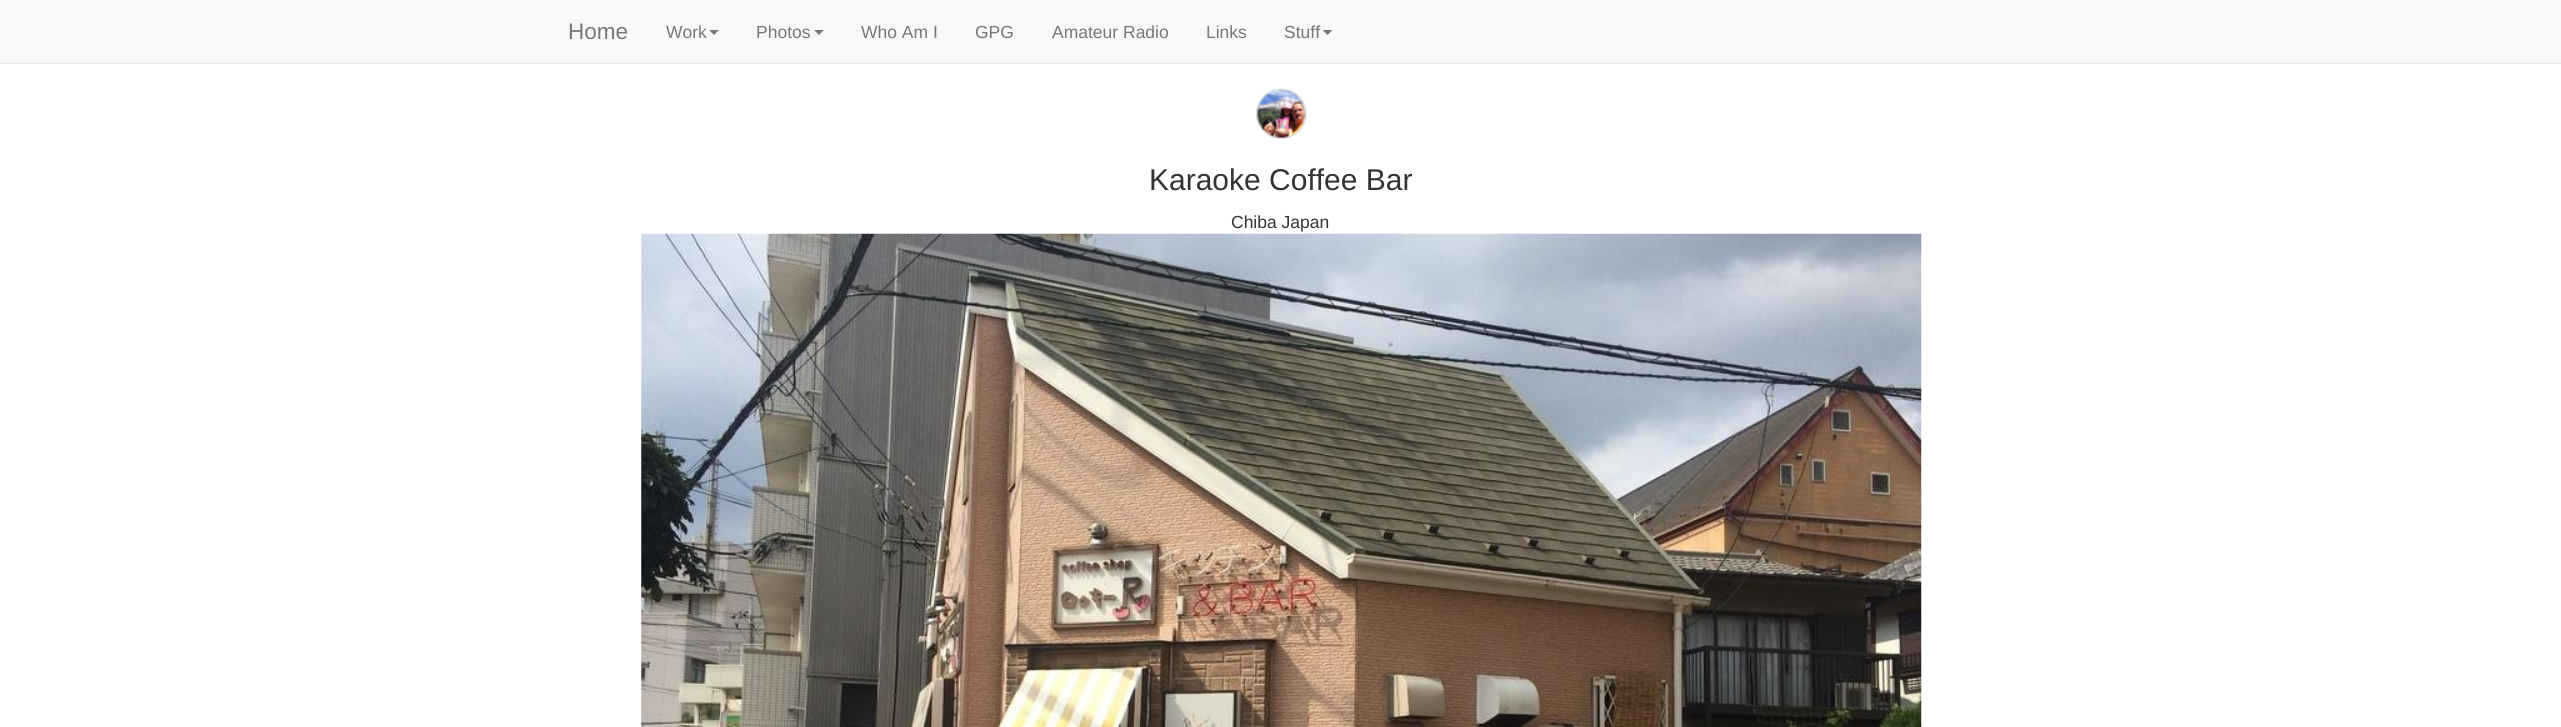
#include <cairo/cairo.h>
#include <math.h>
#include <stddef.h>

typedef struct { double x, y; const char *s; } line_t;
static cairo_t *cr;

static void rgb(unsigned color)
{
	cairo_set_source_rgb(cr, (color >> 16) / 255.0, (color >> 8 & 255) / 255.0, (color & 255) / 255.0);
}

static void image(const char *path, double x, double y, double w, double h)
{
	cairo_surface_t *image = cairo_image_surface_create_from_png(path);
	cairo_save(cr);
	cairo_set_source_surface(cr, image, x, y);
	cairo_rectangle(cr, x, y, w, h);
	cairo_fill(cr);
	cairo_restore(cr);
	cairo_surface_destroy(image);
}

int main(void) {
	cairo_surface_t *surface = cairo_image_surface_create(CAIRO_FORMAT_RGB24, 2561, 727);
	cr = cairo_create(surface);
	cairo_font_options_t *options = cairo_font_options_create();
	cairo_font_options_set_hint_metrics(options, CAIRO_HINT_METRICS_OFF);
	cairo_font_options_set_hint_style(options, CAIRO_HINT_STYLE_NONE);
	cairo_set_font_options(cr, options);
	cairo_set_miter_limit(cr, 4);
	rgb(0xffffff);
	cairo_paint(cr);
	rgb(0xf8f8f8);
	cairo_rectangle(cr, 0, 0, 2561, 63);
	cairo_fill(cr);
	rgb(0xe7e7e7);
	cairo_rectangle(cr, 0, 63, 2561, 1);
	cairo_fill(cr);
	rgb(0x777777);
	cairo_new_path(cr);
	cairo_move_to(cr, 709, 30);
	cairo_line_to(cr, 719, 30);
	cairo_line_to(cr, 714, 35);
	cairo_close_path(cr);
	cairo_fill(cr);
	cairo_new_path(cr);
	cairo_move_to(cr, 814, 30);
	cairo_line_to(cr, 824, 30);
	cairo_line_to(cr, 819, 35);
	cairo_close_path(cr);
	cairo_fill(cr);
	cairo_new_path(cr);
	cairo_move_to(cr, 1322.5, 30);
	cairo_line_to(cr, 1332.5, 30);
	cairo_line_to(cr, 1327.5, 35);
	cairo_close_path(cr);
	cairo_fill(cr);
	image("img/1.png", 1256, 88, 51, 51);
	image("img/2.png", 641, 233, 1281, 494);
	cairo_select_font_face(cr, "Liberation Sans", CAIRO_FONT_SLANT_NORMAL, CAIRO_FONT_WEIGHT_NORMAL);
	cairo_set_font_size(cr, 22.5);
	cairo_move_to(cr, 568, 39);
	cairo_show_text(cr, "Home");
	cairo_set_font_size(cr, 17.5);
	{
		static const line_t items[] = {
			{666, 38, "Work"},
			{756, 38, "Photos"},
			{861, 38, "Who Am I"},
			{975, 38, "GPG"},
			{1052, 38, "Amateur Radio"},
			{1206, 38, "Links"},
			{1284, 38, "Stuff"},
		};
		for (size_t i = 0; i < sizeof items / sizeof *items; i++) {
			cairo_move_to(cr, items[i].x, items[i].y);
			cairo_show_text(cr, items[i].s);
		}
	}
	cairo_set_font_size(cr, 30);
	rgb(0x333333);
	cairo_move_to(cr, 1149, 190);
	cairo_show_text(cr, "Karaoke Coffee Bar");
	cairo_set_font_size(cr, 17.5);
	cairo_move_to(cr, 1231, 228);
	cairo_show_text(cr, "Chiba Japan");
	cairo_surface_write_to_png(surface, "page.png");
	cairo_font_options_destroy(options);
	cairo_destroy(cr);
	cairo_surface_destroy(surface);
	return 0;
}
